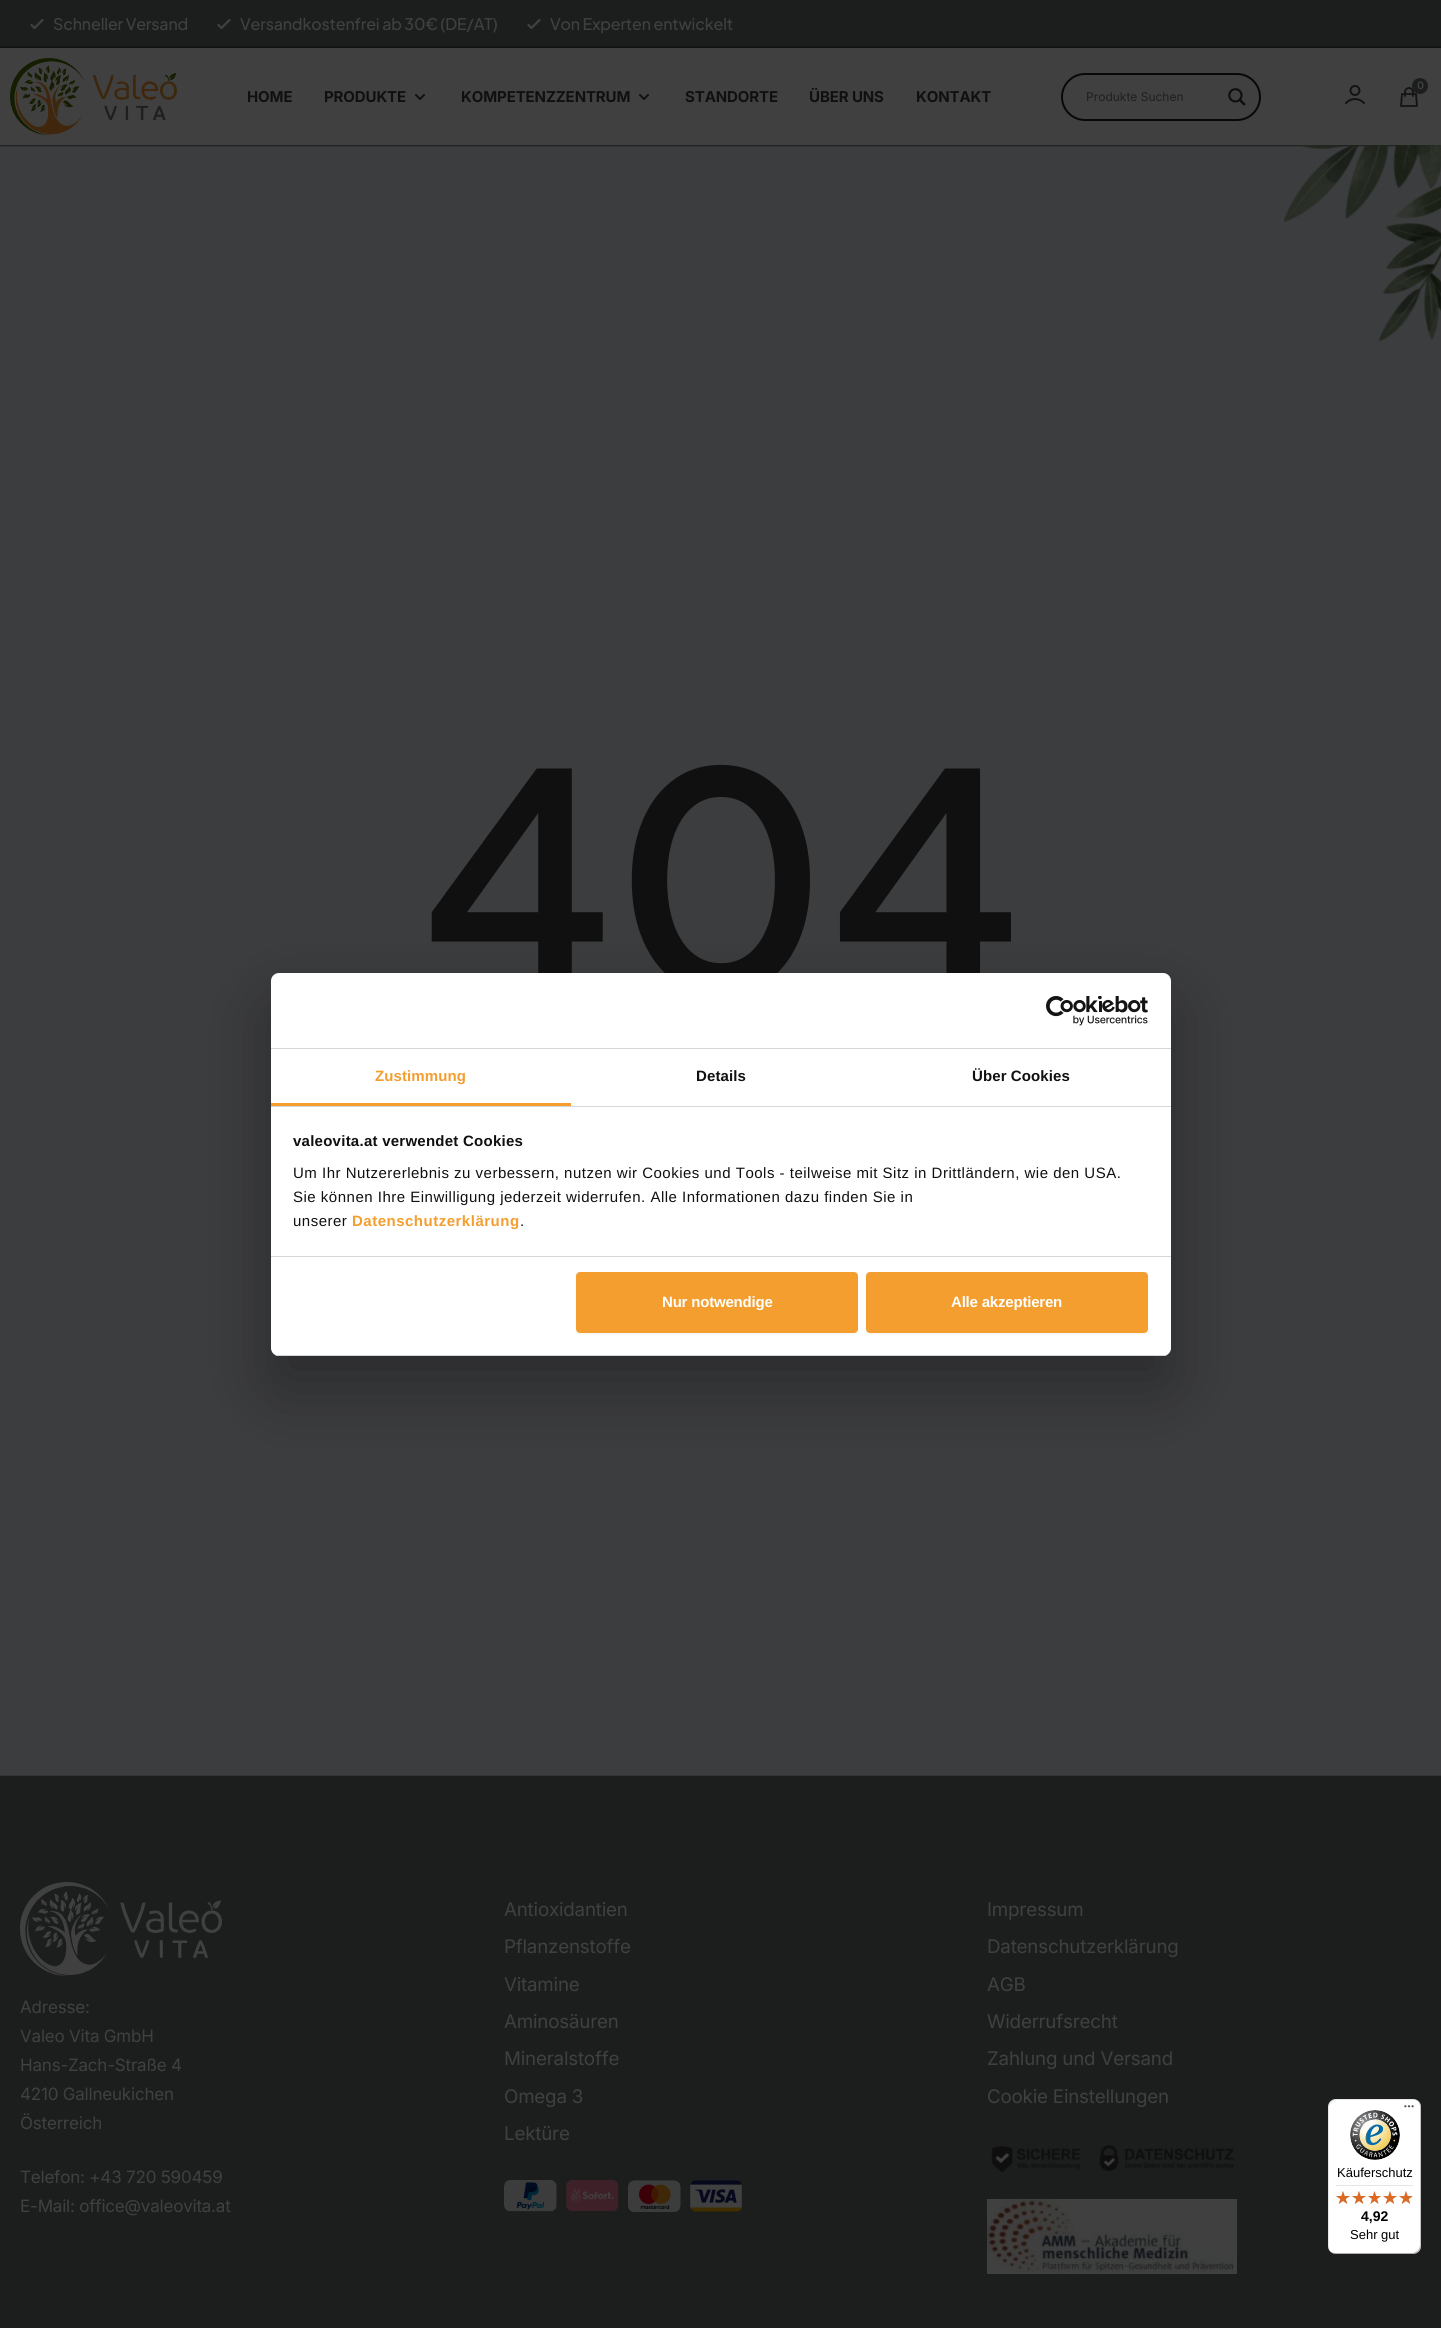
#include <cairo/cairo.h>
#include <math.h>
#include <stddef.h>

typedef struct { double x, y; const char *s; } line_t;
static cairo_t *cr;

static void rgb(unsigned color)
{
	cairo_set_source_rgb(cr, (color >> 16) / 255.0, (color >> 8 & 255) / 255.0, (color & 255) / 255.0);
}

static void tracked(double x, double y, const char *s, double letter, double word)
{
	cairo_move_to(cr, x, y);
	while (*s) {
		char ch[5] = {0};
		int n = 0;
		do ch[n++] = *s++; while ((*s & 0xC0) == 0x80);
		cairo_show_text(cr, ch);
		cairo_rel_move_to(cr, letter + word * (*ch == ' '), 0);
	}
}

static void rrect(double x, double y, double w, double h, double r)
{
	cairo_new_sub_path(cr);
	cairo_arc(cr, x + w - r, y + h - r, r, 0, M_PI / 2);
	cairo_arc(cr, x + r, y + h - r, r, M_PI / 2, M_PI);
	cairo_arc(cr, x + r, y + r, r, M_PI, 1.5 * M_PI);
	cairo_arc(cr, x + w - r, y + r, r, 1.5 * M_PI, 2 * M_PI);
	cairo_close_path(cr);
}

static void soft_shadow(double x, double y, double w, double h, double r, double blur, double alpha)
{
	cairo_push_group_with_content(cr, CAIRO_CONTENT_ALPHA);
	cairo_set_operator(cr, CAIRO_OPERATOR_SOURCE);
	for (int i = 15; i >= -15 && fmin(w, h) + blur * i / 3 > 0; i -= 2) {
		double e = blur * i / 6;
		cairo_set_source_rgba(cr, 0, 0, 0, alpha * erfc((i - 1) / 8.5) / 2);
		rrect(x - e, y - e, w + 2 * e, h + 2 * e, fmax(0, fmin(r + e + blur * .6, fmin(w, h) / 2 + e)));
		cairo_fill(cr);
	}
	cairo_pattern_t *soft = cairo_pop_group(cr);
	cairo_mask(cr, soft);
	cairo_pattern_destroy(soft);
}

static void image(const char *path, double x, double y, double w, double h)
{
	cairo_surface_t *image = cairo_image_surface_create_from_png(path);
	cairo_save(cr);
	cairo_set_source_surface(cr, image, x, y);
	cairo_rectangle(cr, x, y, w, h);
	cairo_fill(cr);
	cairo_restore(cr);
	cairo_surface_destroy(image);
}

int main(void) {
	cairo_surface_t *surface = cairo_image_surface_create(CAIRO_FORMAT_RGB24, 1441, 2328);
	cr = cairo_create(surface);
	cairo_font_options_t *options = cairo_font_options_create();
	cairo_font_options_set_hint_metrics(options, CAIRO_HINT_METRICS_OFF);
	cairo_font_options_set_hint_style(options, CAIRO_HINT_STYLE_NONE);
	cairo_set_font_options(cr, options);
	cairo_set_miter_limit(cr, 4);
	rgb(0x3c3d3f);
	cairo_paint(cr);
	rgb(0x1b1e1c);
	cairo_rectangle(cr, 0, 0, 1441, 48);
	cairo_fill(cr);
	cairo_new_path(cr);
	cairo_move_to(cr, 31.5, 25);
	cairo_line_to(cr, 34.5, 28);
	cairo_line_to(cr, 42.5, 20);
	rgb(0x404040);
	cairo_set_line_width(cr, 2.3);
	cairo_set_line_cap(cr, CAIRO_LINE_CAP_ROUND);
	cairo_set_line_join(cr, CAIRO_LINE_JOIN_ROUND);
	cairo_stroke(cr);
	cairo_new_path(cr);
	cairo_move_to(cr, 218.5, 25);
	cairo_line_to(cr, 221.5, 28);
	cairo_line_to(cr, 229.5, 20);
	cairo_stroke(cr);
	cairo_new_path(cr);
	cairo_move_to(cr, 528.5, 25);
	cairo_line_to(cr, 531.5, 28);
	cairo_line_to(cr, 539.5, 20);
	cairo_stroke(cr);
	rgb(0x000000);
	soft_shadow(-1, 47, 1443, 99, 0, 0.5, 0.5);
	rgb(0x404040);
	cairo_rectangle(cr, 0, 48, 1441, 97);
	cairo_fill(cr);
	image("img/1.png", 10, 58, 167, 77);
	image("img/2.png", 1345, 85, 20, 19);
	image("img/3.png", 1400, 87, 18, 20);
	rgb(0x1b1e1c);
	cairo_arc(cr, 1420, 86, 8, 0, 2 * M_PI);
	cairo_fill(cr);
	image("img/4.png", 415, 94, 10, 6);
	image("img/4.png", 639, 94, 10, 6);
	rrect(1062, 74, 198, 46, 23);
	rgb(0x080808);
	cairo_set_line_width(cr, 2);
	cairo_set_line_cap(cr, CAIRO_LINE_CAP_BUTT);
	cairo_set_line_join(cr, CAIRO_LINE_JOIN_MITER);
	cairo_stroke(cr);
	image("img/5.png", 1228, 88, 18, 18);
	image("img/6.png", 1283, 145, 158, 196);
	rgb(0x1b1e1c);
	cairo_rectangle(cr, 0, 1776, 1441, 552);
	cairo_fill(cr);
	rgb(0x343537);
	cairo_rectangle(cr, 0, 1775, 1441, 1);
	cairo_fill(cr);
	image("img/7.png", 20, 1882, 202, 94);
	image("img/8.png", 504, 2180, 238, 32);
	image("img/9.png", 991, 2145, 244, 27);
	image("img/10.png", 987, 2199, 250, 75);
	rgb(0x000000);
	soft_shadow(271, 1005, 900, 383, 8, 34, 0.3);
	rgb(0xffffff);
	rrect(1328, 2099, 93, 155, 8);
	cairo_fill(cr);
	cairo_set_source_rgba(cr, 0, 0, 0, 0.1);
	cairo_new_path(cr);
	cairo_move_to(cr, 1337, 2100);
	cairo_line_to(cr, 1414, 2100);
	cairo_curve_to(cr, 1416, 2100, 1418, 2101, 1420, 2103);
	cairo_curve_to(cr, 1418, 2101, 1416, 2099, 1413, 2099);
	cairo_line_to(cr, 1336, 2099);
	cairo_curve_to(cr, 1332, 2099, 1328, 2103, 1328, 2107);
	cairo_line_to(cr, 1328, 2246);
	cairo_curve_to(cr, 1328, 2249, 1330, 2251, 1332, 2253);
	cairo_curve_to(cr, 1330, 2251, 1329, 2249, 1329, 2247);
	cairo_line_to(cr, 1329, 2108);
	cairo_curve_to(cr, 1329, 2104, 1333, 2100, 1337, 2100);
	cairo_close_path(cr);
	cairo_fill(cr);
	cairo_set_source_rgba(cr, 0, 0, 0, 0.2);
	cairo_new_path(cr);
	cairo_move_to(cr, 1329, 2250);
	cairo_curve_to(cr, 1331, 2252, 1333, 2254, 1336, 2254);
	cairo_line_to(cr, 1413, 2254);
	cairo_curve_to(cr, 1417, 2254, 1421, 2250, 1421, 2246);
	cairo_line_to(cr, 1421, 2107);
	cairo_curve_to(cr, 1421, 2104, 1419, 2102, 1417, 2100);
	cairo_curve_to(cr, 1419, 2102, 1420, 2104, 1420, 2106);
	cairo_line_to(cr, 1420, 2245);
	cairo_curve_to(cr, 1420, 2249, 1416, 2253, 1412, 2253);
	cairo_line_to(cr, 1335, 2253);
	cairo_curve_to(cr, 1333, 2253, 1331, 2252, 1329, 2250);
	cairo_close_path(cr);
	cairo_fill(cr);
	cairo_set_source_rgba(cr, 0.196, 0.196, 0.196, 0.2);
	cairo_new_path(cr);
	cairo_move_to(cr, 1330, 2251);
	cairo_curve_to(cr, 1331, 2253, 1334, 2254, 1336, 2254);
	cairo_line_to(cr, 1413, 2254);
	cairo_curve_to(cr, 1417, 2254, 1421, 2250, 1421, 2246);
	cairo_line_to(cr, 1421, 2107);
	cairo_curve_to(cr, 1421, 2105, 1420, 2102, 1418, 2101);
	cairo_curve_to(cr, 1419, 2102, 1420, 2104, 1420, 2106);
	cairo_line_to(cr, 1420, 2245);
	cairo_curve_to(cr, 1420, 2250, 1417, 2253, 1412, 2253);
	cairo_line_to(cr, 1335, 2253);
	cairo_curve_to(cr, 1333, 2253, 1331, 2252, 1330, 2251);
	cairo_close_path(cr);
	cairo_fill(cr);
	cairo_set_source_rgba(cr, 1, 1, 1, 0.3);
	cairo_new_path(cr);
	cairo_move_to(cr, 1412, 2254);
	cairo_line_to(cr, 1413, 2254);
	cairo_curve_to(cr, 1417, 2254, 1421, 2250, 1421, 2246);
	cairo_line_to(cr, 1421, 2107);
	cairo_curve_to(cr, 1421, 2105, 1420, 2102, 1418, 2101);
	cairo_curve_to(cr, 1419, 2102, 1420, 2104, 1420, 2106);
	cairo_line_to(cr, 1420, 2246);
	cairo_curve_to(cr, 1420, 2250, 1417, 2254, 1412, 2254);
	cairo_close_path(cr);
	cairo_fill(cr);
	image("img/12.png", 1404, 2105, 10, 3);
	image("img/13.png", 1350, 2110, 50, 50);
	rgb(0xe5e5e5);
	cairo_rectangle(cr, 1336, 2185, 77, 1);
	cairo_fill(cr);
	image("img/14.png", 1336, 2191, 14, 13);
	image("img/14.png", 1352, 2191, 14, 13);
	image("img/15.png", 1368, 2191, 13, 13);
	image("img/14.png", 1383, 2191, 14, 13);
	image("img/14.png", 1399, 2191, 14, 13);
	image("img/16.png", 1336, 2191, 14, 13);
	image("img/16.png", 1352, 2191, 14, 13);
	image("img/17.png", 1368, 2191, 13, 13);
	image("img/16.png", 1383, 2191, 14, 13);
	image("img/18.png", 1399, 2191, 13, 13);
	cairo_select_font_face(cr, "Plus Jakarta Sans Medium", CAIRO_FONT_SLANT_NORMAL, CAIRO_FONT_WEIGHT_NORMAL);
	cairo_set_font_size(cr, 16);
	rgb(0x404040);
	{
		static const line_t items[] = {
			{53, 30, "Schneller Versand"},
			{240, 30, "Versandkostenfrei ab 30€ (DE/AT)"},
			{550, 30, "Von Experten entwickelt"},
		};
		for (size_t i = 0; i < sizeof items / sizeof *items; i++) {
			tracked(items[i].x, items[i].y, items[i].s, -0.15, 0);
		}
	}
	cairo_select_font_face(cr, "Plus Jakarta Sans", CAIRO_FONT_SLANT_NORMAL, CAIRO_FONT_WEIGHT_BOLD);
	cairo_set_font_size(cr, 10);
	tracked(1417, 89, "0", -0.2, 0);
	cairo_select_font_face(cr, "Inter", CAIRO_FONT_SLANT_NORMAL, CAIRO_FONT_WEIGHT_BOLD);
	cairo_set_font_size(cr, 15);
	rgb(0x101010);
	{
		static const line_t items[] = {
			{247, 102, "HOME"},
			{324, 102, "PRODUKTE"},
			{461, 102, "KOMPETENZZENTRUM"},
			{685, 102, "STANDORTE"},
			{809, 102, "ÜBER UNS"},
			{916, 102, "KONTAKT"},
		};
		for (size_t i = 0; i < sizeof items / sizeof *items; i++) {
			tracked(items[i].x, items[i].y, items[i].s, -0.1, 0);
		}
	}
	cairo_select_font_face(cr, "Inter", CAIRO_FONT_SLANT_NORMAL, CAIRO_FONT_WEIGHT_NORMAL);
	cairo_set_font_size(cr, 12);
	rgb(0x1f1f1f);
	cairo_move_to(cr, 1086, 101);
	cairo_show_text(cr, "Produkte Suchen");
	cairo_select_font_face(cr, "Plus Jakarta Sans SemiBold", CAIRO_FONT_SLANT_NORMAL, CAIRO_FONT_WEIGHT_NORMAL);
	cairo_set_font_size(cr, 300);
	rgb(0x101010);
	tracked(420, 992, "404", -0.2, 0);
	cairo_select_font_face(cr, "Inter", CAIRO_FONT_SLANT_NORMAL, CAIRO_FONT_WEIGHT_NORMAL);
	cairo_set_font_size(cr, 17);
	rgb(0x404040);
	{
		static const line_t items[] = {
			{20, 2013, "Adresse:"},
			{20, 2042, "Valeo Vita GmbH"},
			{20, 2071, "Hans-Zach-Straße 4"},
			{20, 2100, "4210 Gallneukichen"},
			{20, 2129, "Österreich"},
			{20, 2183, "Telefon: +43 720 590459"},
			{20, 2212, "E-Mail: office@valeovita.at"},
		};
		for (size_t i = 0; i < sizeof items / sizeof *items; i++) {
			tracked(items[i].x, items[i].y, items[i].s, -0.2, 0);
		}
	}
	cairo_set_font_size(cr, 18.75);
	{
		static const line_t items[] = {
			{504, 1916, "Antioxidantien"},
			{504, 1953, "Pflanzenstoffe"},
			{504, 1991, "Vitamine"},
			{504, 2028, "Aminosäuren"},
			{504, 2065, "Mineralstoffe"},
			{504, 2103, "Omega 3"},
			{504, 2140, "Lektüre"},
			{987, 1916, "Impressum"},
			{987, 1953, "Datenschutzerklärung"},
			{987, 1991, "AGB"},
			{987, 2028, "Widerrufsrecht"},
			{987, 2065, "Zahlung und Versand"},
			{987, 2103, "Cookie Einstellungen"},
		};
		for (size_t i = 0; i < sizeof items / sizeof *items; i++) {
			tracked(items[i].x, items[i].y, items[i].s, -0.2, 0);
		}
	}
	rgb(0xffffff);
	rrect(271, 973, 900, 383, 8);
	cairo_fill(cr);
	rgb(0xd6d6d6);
	cairo_rectangle(cr, 271, 1048, 900, 1);
	cairo_fill(cr);
	image("img/11.png", 1046, 996, 102, 30);
	cairo_rectangle(cr, 271, 1106, 900, 1);
	cairo_fill(cr);
	rgb(0xf39e2e);
	cairo_rectangle(cr, 271, 1103, 300, 3);
	cairo_fill(cr);
	cairo_select_font_face(cr, "Liberation Sans", CAIRO_FONT_SLANT_NORMAL, CAIRO_FONT_WEIGHT_BOLD);
	cairo_set_font_size(cr, 15);
	tracked(375, 1081, "Zustimmung", 0.1, 0);
	rgb(0x101010);
	tracked(696, 1081, "Details", 0.1, 0);
	tracked(972, 1081, "Über Cookies", 0.1, 0);
	rgb(0xd6d6d6);
	cairo_rectangle(cr, 271, 1256, 900, 1);
	cairo_fill(cr);
	rgb(0x101010);
	tracked(293, 1146, "valeovita.at verwendet Cookies", 0.25, 0);
	cairo_select_font_face(cr, "Liberation Sans", CAIRO_FONT_SLANT_NORMAL, CAIRO_FONT_WEIGHT_NORMAL);
	{
		static const line_t items[] = {
			{293, 1178, "Um Ihr Nutzererlebnis zu verbessern, nutzen wir Cookies und Tools - teilweise mit Sitz in Drittländern, wie den USA."},
			{293, 1202, "Sie können Ihre Einwilligung jederzeit widerrufen. Alle Informationen dazu finden Sie in"},
			{293, 1226, "unserer"},
		};
		for (size_t i = 0; i < sizeof items / sizeof *items; i++) {
			tracked(items[i].x, items[i].y, items[i].s, 0.5, 0);
		}
	}
	cairo_select_font_face(cr, "Liberation Sans", CAIRO_FONT_SLANT_NORMAL, CAIRO_FONT_WEIGHT_BOLD);
	rgb(0xf39e2e);
	tracked(352, 1226, "Datenschutzerklärung", 0.5, 0);
	cairo_select_font_face(cr, "Liberation Sans", CAIRO_FONT_SLANT_NORMAL, CAIRO_FONT_WEIGHT_NORMAL);
	rgb(0x101010);
	tracked(520, 1226, ".", 0.5, 0);
	cairo_save(cr);
	rrect(271, 973, 900, 383, 8);
	cairo_clip(cr);
	rgb(0xd6d6d6);
	cairo_rectangle(cr, 271, 1355, 900, 1);
	cairo_fill(cr);
	cairo_restore(cr);
	rgb(0x000000);
	soft_shadow(576, 1273, 282, 61, 4, 1, 0.05);
	rgb(0xf39e2e);
	rrect(577, 1273, 280, 59, 3);
	cairo_fill_preserve(cr);
	cairo_stroke(cr);
	cairo_select_font_face(cr, "Liberation Sans", CAIRO_FONT_SLANT_NORMAL, CAIRO_FONT_WEIGHT_BOLD);
	rgb(0xffffff);
	tracked(662, 1307, "Nur notwendige", -0.2, 0);
	rgb(0x000000);
	soft_shadow(866, 1273, 282, 61, 4, 1, 0.05);
	rgb(0xf39e2e);
	rrect(867, 1273, 280, 59, 3);
	cairo_fill_preserve(cr);
	cairo_stroke(cr);
	rgb(0xffffff);
	tracked(951, 1307, "Alle akzeptieren", -0.2, 0);
	cairo_select_font_face(cr, "Liberation Sans", CAIRO_FONT_SLANT_NORMAL, CAIRO_FONT_WEIGHT_NORMAL);
	cairo_set_font_size(cr, 13);
	rgb(0x000000);
	cairo_move_to(cr, 1337, 2177);
	cairo_show_text(cr, "Käuferschutz");
	cairo_select_font_face(cr, "Liberation Sans", CAIRO_FONT_SLANT_NORMAL, CAIRO_FONT_WEIGHT_BOLD);
	cairo_set_font_size(cr, 14);
	cairo_move_to(cr, 1361, 2221);
	cairo_show_text(cr, "4,92");
	cairo_select_font_face(cr, "Liberation Sans", CAIRO_FONT_SLANT_NORMAL, CAIRO_FONT_WEIGHT_NORMAL);
	cairo_set_font_size(cr, 13);
	cairo_move_to(cr, 1350, 2239);
	cairo_show_text(cr, "Sehr gut");
	cairo_surface_write_to_png(surface, "page.png");
	cairo_font_options_destroy(options);
	cairo_destroy(cr);
	cairo_surface_destroy(surface);
	return 0;
}
